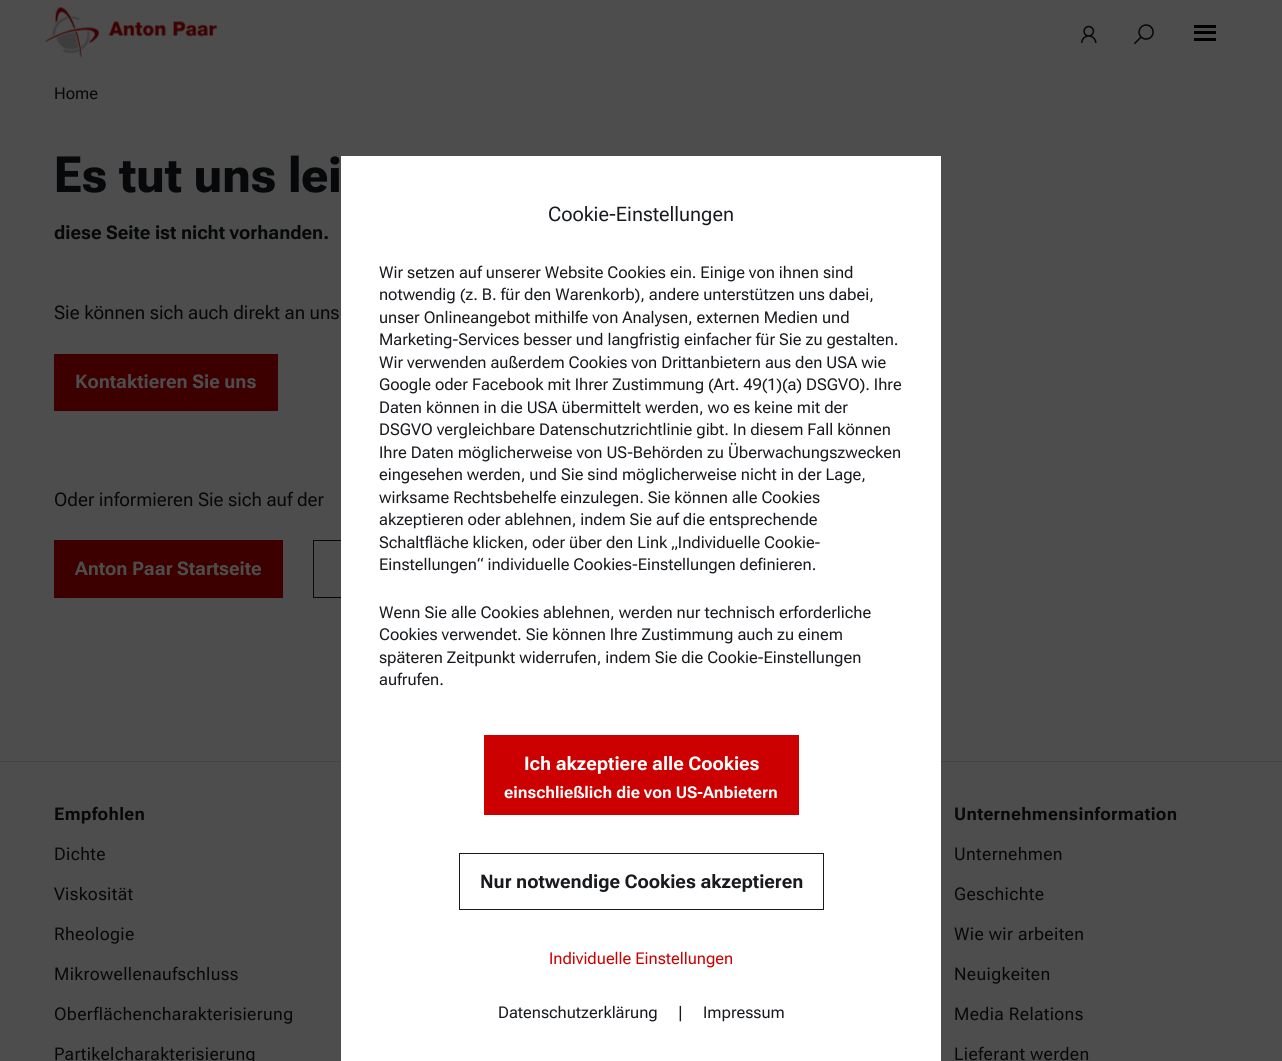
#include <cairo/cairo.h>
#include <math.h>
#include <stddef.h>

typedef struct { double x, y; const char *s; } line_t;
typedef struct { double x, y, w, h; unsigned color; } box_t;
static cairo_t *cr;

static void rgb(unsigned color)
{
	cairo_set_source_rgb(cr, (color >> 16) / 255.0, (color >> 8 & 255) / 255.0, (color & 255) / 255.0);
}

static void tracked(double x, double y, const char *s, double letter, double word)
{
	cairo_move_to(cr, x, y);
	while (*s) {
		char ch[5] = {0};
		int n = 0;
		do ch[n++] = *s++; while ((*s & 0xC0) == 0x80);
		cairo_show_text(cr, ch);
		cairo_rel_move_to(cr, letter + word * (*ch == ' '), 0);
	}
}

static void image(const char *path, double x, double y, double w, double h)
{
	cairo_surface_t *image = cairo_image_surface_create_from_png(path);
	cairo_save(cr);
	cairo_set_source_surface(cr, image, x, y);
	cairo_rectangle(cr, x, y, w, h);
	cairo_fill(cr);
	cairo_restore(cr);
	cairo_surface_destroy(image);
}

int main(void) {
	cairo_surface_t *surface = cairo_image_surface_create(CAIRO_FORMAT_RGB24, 1282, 1061);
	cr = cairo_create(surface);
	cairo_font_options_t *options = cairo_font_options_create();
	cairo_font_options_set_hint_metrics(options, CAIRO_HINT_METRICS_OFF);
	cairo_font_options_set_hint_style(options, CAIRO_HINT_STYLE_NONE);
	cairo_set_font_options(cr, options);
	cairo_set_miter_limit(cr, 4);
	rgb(0x4d4d4d);
	cairo_paint(cr);
	image("img/1.png", 45, 7, 172, 51);
	image("img/2.png", 1080, 25, 17, 18);
	image("img/3.png", 1133, 24, 21, 21);
	{
		static const box_t items[] = {
			{1194, 25, 22, 3, 0x000000},
			{1194, 31, 22, 3, 0x000000},
			{1194, 38, 22, 3, 0x000000},
			{54, 354, 224, 57, 0x3d0000},
			{54, 540, 229, 58, 0x3d0000},
		};
		for (size_t i = 0; i < sizeof items / sizeof *items; i++) {
			rgb(items[i].color);
			cairo_rectangle(cr, items[i].x, items[i].y, items[i].w, items[i].h);
			cairo_fill(cr);
		}
	}
	cairo_rectangle(cr, 313.5, 540.5, 207, 57);
	rgb(0x070809);
	cairo_set_line_width(cr, 1);
	cairo_stroke(cr);
	{
		static const box_t items[] = {
			{0, 761, 1282, 1, 0x434345},
			{341, 156, 600, 905, 0xffffff},
			{484, 735, 315, 80, 0xcc0000},
		};
		for (size_t i = 0; i < sizeof items / sizeof *items; i++) {
			rgb(items[i].color);
			cairo_rectangle(cr, items[i].x, items[i].y, items[i].w, items[i].h);
			cairo_fill(cr);
		}
	}
	cairo_rectangle(cr, 459.5, 853.5, 364, 56);
	rgb(0x181a1e);
	cairo_stroke(cr);
	cairo_select_font_face(cr, "Roboto Flex", CAIRO_FONT_SLANT_NORMAL, CAIRO_FONT_WEIGHT_NORMAL);
	cairo_set_font_size(cr, 16.25);
	rgb(0x070809);
	cairo_move_to(cr, 54, 99);
	cairo_show_text(cr, "Home");
	cairo_select_font_face(cr, "Roboto Flex", CAIRO_FONT_SLANT_NORMAL, CAIRO_FONT_WEIGHT_BOLD);
	cairo_set_font_size(cr, 50);
	cairo_move_to(cr, 54, 192);
	cairo_show_text(cr, "Es tut uns lei");
	cairo_select_font_face(cr, "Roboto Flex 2", CAIRO_FONT_SLANT_NORMAL, CAIRO_FONT_WEIGHT_BOLD);
	cairo_set_font_size(cr, 18.75);
	cairo_move_to(cr, 54, 239);
	cairo_show_text(cr, "diese Seite ist nicht vorhanden.");
	cairo_select_font_face(cr, "Roboto Flex 2", CAIRO_FONT_SLANT_NORMAL, CAIRO_FONT_WEIGHT_NORMAL);
	cairo_move_to(cr, 54, 319);
	cairo_show_text(cr, "Sie können sich auch direkt an uns");
	cairo_select_font_face(cr, "Roboto Flex 2", CAIRO_FONT_SLANT_NORMAL, CAIRO_FONT_WEIGHT_BOLD);
	rgb(0x4d4d4d);
	cairo_move_to(cr, 75, 388);
	cairo_show_text(cr, "Kontaktieren Sie uns");
	cairo_select_font_face(cr, "Roboto Flex 2", CAIRO_FONT_SLANT_NORMAL, CAIRO_FONT_WEIGHT_NORMAL);
	rgb(0x070809);
	cairo_move_to(cr, 54, 506);
	cairo_show_text(cr, "Oder informieren Sie sich auf der");
	cairo_select_font_face(cr, "Roboto Flex 2", CAIRO_FONT_SLANT_NORMAL, CAIRO_FONT_WEIGHT_BOLD);
	rgb(0x4d4d4d);
	cairo_move_to(cr, 75, 575);
	cairo_show_text(cr, "Anton Paar Startseite");
	cairo_select_font_face(cr, "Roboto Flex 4", CAIRO_FONT_SLANT_NORMAL, CAIRO_FONT_WEIGHT_NORMAL);
	cairo_set_font_size(cr, 20);
	rgb(0x181a1e);
	cairo_move_to(cr, 548, 221);
	cairo_show_text(cr, "Cookie-Einstellungen");
	cairo_select_font_face(cr, "Roboto Flex", CAIRO_FONT_SLANT_NORMAL, CAIRO_FONT_WEIGHT_NORMAL);
	cairo_set_font_size(cr, 16.25);
	{
		static const line_t items[] = {
			{379, 278, "Wir setzen auf unserer Website Cookies ein. Einige von ihnen sind"},
			{379, 300, "notwendig (z. B. für den Warenkorb), andere unterstützen uns dabei,"},
			{379, 323, "unser Onlineangebot mithilfe von Analysen, externen Medien und"},
			{379, 345, "Marketing-Services besser und langfristig einfacher für Sie zu gestalten."},
			{379, 368, "Wir verwenden außerdem Cookies von Drittanbietern aus den USA wie"},
			{379, 390, "Google oder Facebook mit Ihrer Zustimmung (Art. 49(1)(a) DSGVO). Ihre"},
			{379, 413, "Daten können in die USA übermittelt werden, wo es keine mit der"},
			{379, 435, "DSGVO vergleichbare Datenschutzrichtlinie gibt. In diesem Fall können"},
			{379, 458, "Ihre Daten möglicherweise von US-Behörden zu Überwachungszwecken"},
			{379, 480, "eingesehen werden, und Sie sind möglicherweise nicht in der Lage,"},
			{379, 503, "wirksame Rechtsbehelfe einzulegen. Sie können alle Cookies"},
			{379, 525, "akzeptieren oder ablehnen, indem Sie auf die entsprechende"},
			{379, 548, "Schaltfläche klicken, oder über den Link „Individuelle Cookie-"},
			{379, 570, "Einstellungen“ individuelle Cookies-Einstellungen definieren."},
			{379, 618, "Wenn Sie alle Cookies ablehnen, werden nur technisch erforderliche"},
			{379, 640, "Cookies verwendet. Sie können Ihre Zustimmung auch zu einem"},
			{379, 663, "späteren Zeitpunkt widerrufen, indem Sie die Cookie-Einstellungen"},
			{379, 685, "aufrufen."},
		};
		for (size_t i = 0; i < sizeof items / sizeof *items; i++) {
			cairo_move_to(cr, items[i].x, items[i].y);
			cairo_show_text(cr, items[i].s);
		}
	}
	cairo_select_font_face(cr, "Roboto Flex 2", CAIRO_FONT_SLANT_NORMAL, CAIRO_FONT_WEIGHT_BOLD);
	cairo_set_font_size(cr, 18.75);
	rgb(0xffffff);
	cairo_move_to(cr, 524, 770);
	cairo_show_text(cr, "Ich akzeptiere alle Cookies");
	cairo_select_font_face(cr, "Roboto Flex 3", CAIRO_FONT_SLANT_NORMAL, CAIRO_FONT_WEIGHT_BOLD);
	cairo_set_font_size(cr, 16.25);
	cairo_move_to(cr, 504, 798);
	cairo_show_text(cr, "einschließlich die von US-Anbietern");
	cairo_select_font_face(cr, "Roboto Flex 2", CAIRO_FONT_SLANT_NORMAL, CAIRO_FONT_WEIGHT_BOLD);
	cairo_set_font_size(cr, 18.75);
	rgb(0x181a1e);
	cairo_move_to(cr, 480, 888);
	cairo_show_text(cr, "Nur notwendige Cookies akzeptieren");
	cairo_select_font_face(cr, "Roboto Flex", CAIRO_FONT_SLANT_NORMAL, CAIRO_FONT_WEIGHT_NORMAL);
	cairo_set_font_size(cr, 16.25);
	rgb(0xcc0000);
	cairo_move_to(cr, 549, 964);
	cairo_show_text(cr, "Individuelle Einstellungen");
	rgb(0x181a1e);
	{
		static const line_t items[] = {
			{498, 1018, "Datenschutzerklärung"},
			{678, 1018, "|"},
			{703, 1018, "Impressum"},
		};
		for (size_t i = 0; i < sizeof items / sizeof *items; i++) {
			cairo_move_to(cr, items[i].x, items[i].y);
			cairo_show_text(cr, items[i].s);
		}
	}
	cairo_select_font_face(cr, "Roboto Flex 2", CAIRO_FONT_SLANT_NORMAL, CAIRO_FONT_WEIGHT_BOLD);
	cairo_set_font_size(cr, 17.5);
	rgb(0x070809);
	tracked(54, 820, "Empfohlen", 0.35, 0);
	cairo_select_font_face(cr, "Roboto Flex 3", CAIRO_FONT_SLANT_NORMAL, CAIRO_FONT_WEIGHT_NORMAL);
	{
		static const line_t items[] = {
			{54, 860, "Dichte"},
			{54, 900, "Viskosität"},
			{54, 940, "Rheologie"},
			{54, 980, "Mikrowellenaufschluss"},
			{54, 1020, "Oberflächencharakterisierung"},
			{54, 1060, "Partikelcharakterisierung"},
		};
		for (size_t i = 0; i < sizeof items / sizeof *items; i++) {
			tracked(items[i].x, items[i].y, items[i].s, 0.35, 0);
		}
	}
	cairo_select_font_face(cr, "Roboto Flex 2", CAIRO_FONT_SLANT_NORMAL, CAIRO_FONT_WEIGHT_BOLD);
	tracked(954, 820, "Unternehmensinformation", 0.35, 0);
	cairo_select_font_face(cr, "Roboto Flex 3", CAIRO_FONT_SLANT_NORMAL, CAIRO_FONT_WEIGHT_NORMAL);
	{
		static const line_t items[] = {
			{954, 860, "Unternehmen"},
			{954, 900, "Geschichte"},
			{954, 940, "Wie wir arbeiten"},
			{954, 980, "Neuigkeiten"},
			{954, 1020, "Media Relations"},
			{954, 1060, "Lieferant werden"},
		};
		for (size_t i = 0; i < sizeof items / sizeof *items; i++) {
			tracked(items[i].x, items[i].y, items[i].s, 0.35, 0);
		}
	}
	cairo_surface_write_to_png(surface, "page.png");
	cairo_font_options_destroy(options);
	cairo_destroy(cr);
	cairo_surface_destroy(surface);
	return 0;
}
